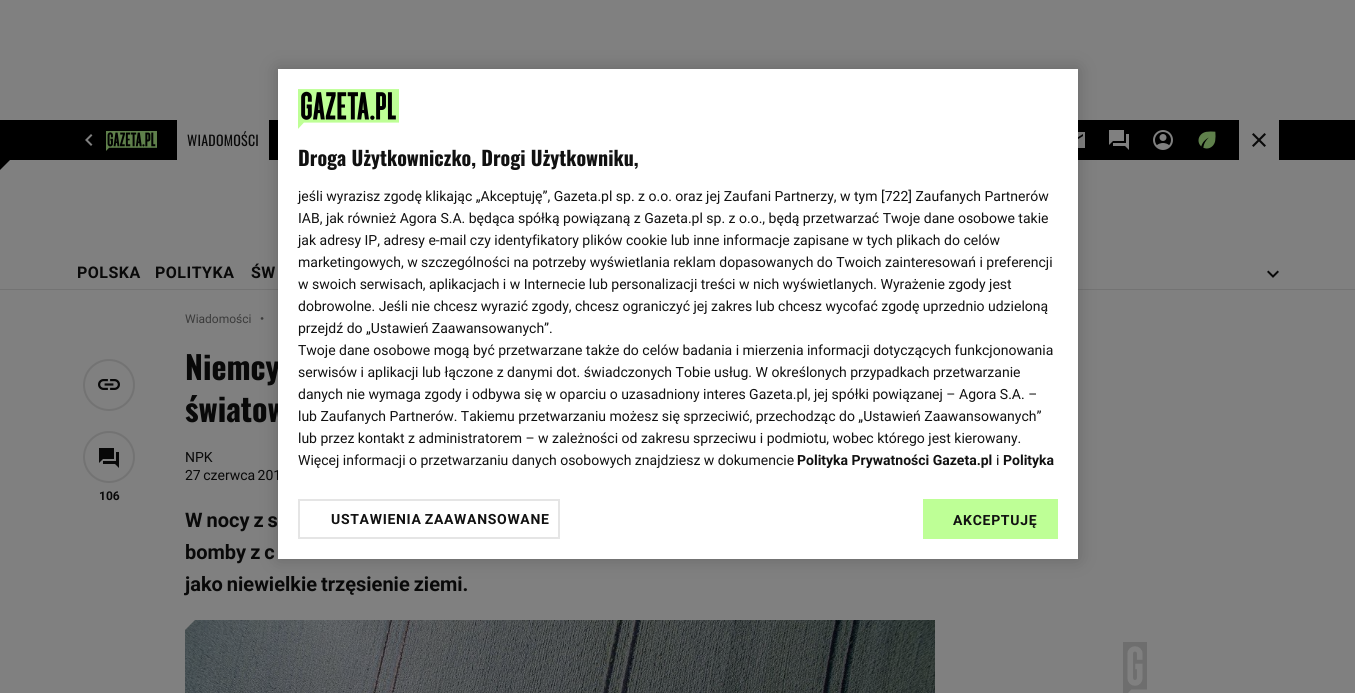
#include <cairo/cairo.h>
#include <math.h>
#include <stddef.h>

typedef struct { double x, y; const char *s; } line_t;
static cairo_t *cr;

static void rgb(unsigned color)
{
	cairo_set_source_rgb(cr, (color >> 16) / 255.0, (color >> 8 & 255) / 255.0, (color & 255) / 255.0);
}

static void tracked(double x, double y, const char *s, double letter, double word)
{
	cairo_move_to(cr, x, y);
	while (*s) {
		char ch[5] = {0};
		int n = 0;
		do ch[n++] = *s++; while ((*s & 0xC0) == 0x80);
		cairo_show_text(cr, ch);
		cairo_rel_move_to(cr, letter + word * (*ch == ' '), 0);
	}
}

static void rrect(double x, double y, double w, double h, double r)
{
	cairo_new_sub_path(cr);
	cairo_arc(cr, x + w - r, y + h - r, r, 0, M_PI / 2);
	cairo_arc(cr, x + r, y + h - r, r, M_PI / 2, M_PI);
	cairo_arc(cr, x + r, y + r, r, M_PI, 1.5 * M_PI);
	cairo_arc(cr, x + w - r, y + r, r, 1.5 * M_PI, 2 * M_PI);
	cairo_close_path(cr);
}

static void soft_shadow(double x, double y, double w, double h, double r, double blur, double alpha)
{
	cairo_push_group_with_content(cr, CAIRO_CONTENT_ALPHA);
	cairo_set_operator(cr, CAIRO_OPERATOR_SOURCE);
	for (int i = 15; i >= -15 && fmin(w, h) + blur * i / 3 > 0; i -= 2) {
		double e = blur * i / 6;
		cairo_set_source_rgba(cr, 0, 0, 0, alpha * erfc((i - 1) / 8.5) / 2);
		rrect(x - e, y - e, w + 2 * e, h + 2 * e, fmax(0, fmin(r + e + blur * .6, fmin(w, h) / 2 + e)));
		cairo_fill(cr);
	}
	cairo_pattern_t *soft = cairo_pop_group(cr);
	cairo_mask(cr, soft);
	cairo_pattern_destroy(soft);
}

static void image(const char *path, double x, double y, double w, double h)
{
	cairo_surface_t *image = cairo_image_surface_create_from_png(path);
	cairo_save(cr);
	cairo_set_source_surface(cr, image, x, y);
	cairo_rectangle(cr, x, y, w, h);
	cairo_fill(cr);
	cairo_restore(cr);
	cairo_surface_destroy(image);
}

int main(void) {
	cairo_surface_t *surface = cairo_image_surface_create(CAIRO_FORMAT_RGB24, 1355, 693);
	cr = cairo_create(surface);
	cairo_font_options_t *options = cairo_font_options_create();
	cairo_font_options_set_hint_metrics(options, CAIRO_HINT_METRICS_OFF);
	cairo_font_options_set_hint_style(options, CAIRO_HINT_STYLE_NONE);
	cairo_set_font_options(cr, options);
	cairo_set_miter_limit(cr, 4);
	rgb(0x808080);
	cairo_paint(cr);
	rgb(0x000000);
	cairo_rectangle(cr, 0, 120, 1355, 40);
	cairo_fill(cr);
	image("img/1.png", 85, 134, 8, 12);
	image("img/2.png", 106, 131, 51, 20);
	rgb(0x808080);
	cairo_rectangle(cr, 177, 120, 92, 40);
	cairo_fill(cr);
	image("img/3.png", 1078, 132, 7, 16);
	image("img/4.png", 1109, 130, 20, 20);
	image("img/5.png", 1153, 130, 20, 20);
	image("img/6.png", 1198, 131, 18, 18);
	cairo_rectangle(cr, 1239, 120, 40, 40);
	cairo_fill(cr);
	rgb(0x090909);
	cairo_new_path(cr);
	cairo_move_to(cr, 1266, 134.5);
	cairo_line_to(cr, 1264.5, 133);
	cairo_line_to(cr, 1259, 138.5);
	cairo_line_to(cr, 1253.5, 133);
	cairo_line_to(cr, 1252, 134.5);
	cairo_line_to(cr, 1257.5, 140);
	cairo_line_to(cr, 1252, 145.5);
	cairo_line_to(cr, 1253.5, 147);
	cairo_line_to(cr, 1259, 141.5);
	cairo_line_to(cr, 1264.5, 147);
	cairo_line_to(cr, 1266, 145.5);
	cairo_line_to(cr, 1260.5, 140);
	cairo_close_path(cr);
	cairo_fill(cr);
	rgb(0x000000);
	cairo_new_path(cr);
	cairo_move_to(cr, 0, 160);
	cairo_line_to(cr, 10, 160);
	cairo_line_to(cr, 0, 170);
	cairo_close_path(cr);
	cairo_fill(cr);
	rgb(0x737373);
	cairo_rectangle(cr, 0, 289, 1355, 1);
	cairo_fill(cr);
	image("img/7.png", 1267, 270, 12, 8);
	rgb(0x000000);
	soft_shadow(278, 69, 800, 490, 0, 9, 0.2);
	cairo_arc(cr, 109, 385, 25, 0, 2 * M_PI);
	rgb(0x737373);
	cairo_stroke(cr);
	image("img/9.png", 98, 379, 22, 11);
	cairo_arc(cr, 109, 457, 25, 0, 2 * M_PI);
	cairo_stroke(cr);
	image("img/10.png", 99, 448, 20, 20);
	image("img/11.png", 185, 620, 750, 73);
	rgb(0x808080);
	cairo_new_path(cr);
	cairo_move_to(cr, 185, 620);
	cairo_line_to(cr, 195, 620);
	cairo_line_to(cr, 185, 630);
	cairo_close_path(cr);
	cairo_fill(cr);
	image("img/12.png", 1123, 642, 24, 51);
	cairo_select_font_face(cr, "Oswald", CAIRO_FONT_SLANT_NORMAL, CAIRO_FONT_WEIGHT_NORMAL);
	cairo_set_font_size(cr, 14);
	rgb(0x090909);
	tracked(187, 146, "WIADOMOŚCI", 0.25, 0);
	cairo_select_font_face(cr, "Roboto", CAIRO_FONT_SLANT_NORMAL, CAIRO_FONT_WEIGHT_BOLD);
	cairo_set_font_size(cr, 16);
	{
		static const line_t items[] = {
			{77, 278, "POLSKA"},
			{155, 278, "POLITYKA"},
			{251, 278, "ŚW"},
		};
		for (size_t i = 0; i < sizeof items / sizeof *items; i++) {
			tracked(items[i].x, items[i].y, items[i].s, 0.5, 0);
		}
	}
	cairo_select_font_face(cr, "Roboto", CAIRO_FONT_SLANT_NORMAL, CAIRO_FONT_WEIGHT_NORMAL);
	cairo_set_font_size(cr, 12);
	rgb(0x3b3b3b);
	cairo_move_to(cr, 185, 323);
	cairo_show_text(cr, "Wiadomości");
	cairo_set_font_size(cr, 24);
	cairo_move_to(cr, 259, 327);
	cairo_show_text(cr, "·");
	cairo_select_font_face(cr, "Oswald", CAIRO_FONT_SLANT_NORMAL, CAIRO_FONT_WEIGHT_BOLD);
	cairo_set_font_size(cr, 32);
	rgb(0x090909);
	cairo_move_to(cr, 185, 380);
	cairo_show_text(cr, "Niemcy");
	cairo_move_to(cr, 185, 422);
	cairo_show_text(cr, "światow");
	cairo_select_font_face(cr, "Roboto", CAIRO_FONT_SLANT_NORMAL, CAIRO_FONT_WEIGHT_BOLD);
	cairo_set_font_size(cr, 12);
	cairo_move_to(cr, 99, 500);
	cairo_show_text(cr, "106");
	cairo_select_font_face(cr, "Roboto", CAIRO_FONT_SLANT_NORMAL, CAIRO_FONT_WEIGHT_NORMAL);
	cairo_set_font_size(cr, 14);
	cairo_move_to(cr, 185, 462);
	cairo_show_text(cr, "NPK");
	tracked(185, 480, "27 czerwca 201", 0, -1);
	rgb(0xffffff);
	cairo_rectangle(cr, 278, 69, 800, 490);
	cairo_fill(cr);
	rgb(0xbeff96);
	cairo_rectangle(cr, 923, 499, 135, 40);
	cairo_fill(cr);
	cairo_select_font_face(cr, "Roboto", CAIRO_FONT_SLANT_NORMAL, CAIRO_FONT_WEIGHT_BOLD);
	rgb(0x111111);
	tracked(953, 525, "AKCEPTUJĘ", 0.7, 0);
	cairo_move_to(cr, 1003, 465);
	cairo_show_text(cr, "Polityka");
	cairo_select_font_face(cr, "Roboto", CAIRO_FONT_SLANT_NORMAL, CAIRO_FONT_WEIGHT_NORMAL);
	cairo_move_to(cr, 996, 465);
	cairo_show_text(cr, "i");
	cairo_select_font_face(cr, "Roboto", CAIRO_FONT_SLANT_NORMAL, CAIRO_FONT_WEIGHT_BOLD);
	cairo_move_to(cr, 797, 465);
	cairo_show_text(cr, "Polityka Prywatności Gazeta.pl");
	cairo_select_font_face(cr, "Roboto", CAIRO_FONT_SLANT_NORMAL, CAIRO_FONT_WEIGHT_NORMAL);
	{
		static const line_t items[] = {
			{298, 465, "Więcej informacji o przetwarzaniu danych osobowych znajdziesz w dokumencie"},
			{298, 443, "lub przez kontakt z administratorem – w zależności od zakresu sprzeciwu i podmiotu, wobec którego jest kierowany."},
			{298, 421, "lub Zaufanych Partnerów. Takiemu przetwarzaniu możesz się sprzeciwić, przechodząc do „Ustawień Zaawansowanych”"},
			{298, 399, "danych nie wymaga zgody i odbywa się w oparciu o uzasadniony interes Gazeta.pl, jej spółki powiązanej – Agora S.A. –"},
			{298, 377, "serwisów i aplikacji lub łączone z danymi dot. świadczonych Tobie usług. W określonych przypadkach przetwarzanie"},
			{298, 355, "Twoje dane osobowe mogą być przetwarzane także do celów badania i mierzenia informacji dotyczących funkcjonowania"},
			{298, 333, "przejdź do „Ustawień Zaawansowanych”."},
			{298, 311, "dobrowolne. Jeśli nie chcesz wyrazić zgody, chcesz ograniczyć jej zakres lub chcesz wycofać zgodę uprzednio udzieloną"},
			{298, 289, "w swoich serwisach, aplikacjach i w Internecie lub personalizacji treści w nich wyświetlanych. Wyrażenie zgody jest"},
			{298, 267, "marketingowych, w szczególności na potrzeby wyświetlania reklam dopasowanych do Twoich zainteresowań i preferencji"},
			{298, 245, "jak adresy IP, adresy e-mail czy identyfikatory plików cookie lub inne informacje zapisane w tych plikach do celów"},
			{298, 223, "IAB, jak również Agora S.A. będąca spółką powiązaną z Gazeta.pl sp. z o.o., będą przetwarzać Twoje dane osobowe takie"},
			{298, 201, "jeśli wyrazisz zgodę klikając „Akceptuję”, Gazeta.pl sp. z o.o. oraz jej Zaufani Partnerzy, w tym [722] Zaufanych Partnerów"},
		};
		for (size_t i = 0; i < sizeof items / sizeof *items; i++) {
			cairo_move_to(cr, items[i].x, items[i].y);
			cairo_show_text(cr, items[i].s);
		}
	}
	cairo_select_font_face(cr, "Oswald", CAIRO_FONT_SLANT_NORMAL, CAIRO_FONT_WEIGHT_BOLD);
	cairo_set_font_size(cr, 20);
	cairo_move_to(cr, 298, 166);
	cairo_show_text(cr, "Droga Użytkowniczko, Drogi Użytkowniku,");
	image("img/8.png", 298, 89, 101, 40);
	cairo_rectangle(cr, 299, 500, 260, 38);
	rgb(0xe5e5e5);
	cairo_stroke(cr);
	cairo_select_font_face(cr, "Roboto", CAIRO_FONT_SLANT_NORMAL, CAIRO_FONT_WEIGHT_BOLD);
	cairo_set_font_size(cr, 14);
	rgb(0x111111);
	tracked(331, 524, "USTAWIENIA ZAAWANSOWANE", 0.7, -1);
	cairo_set_font_size(cr, 20);
	rgb(0x090909);
	{
		static const line_t items[] = {
			{185, 527, "W nocy z s"},
			{185, 559, "bomby z c"},
			{185, 591, "jako niewielkie trzęsienie ziemi."},
		};
		for (size_t i = 0; i < sizeof items / sizeof *items; i++) {
			tracked(items[i].x, items[i].y, items[i].s, 0, -1);
		}
	}
	cairo_surface_write_to_png(surface, "page.png");
	cairo_font_options_destroy(options);
	cairo_destroy(cr);
	cairo_surface_destroy(surface);
	return 0;
}
